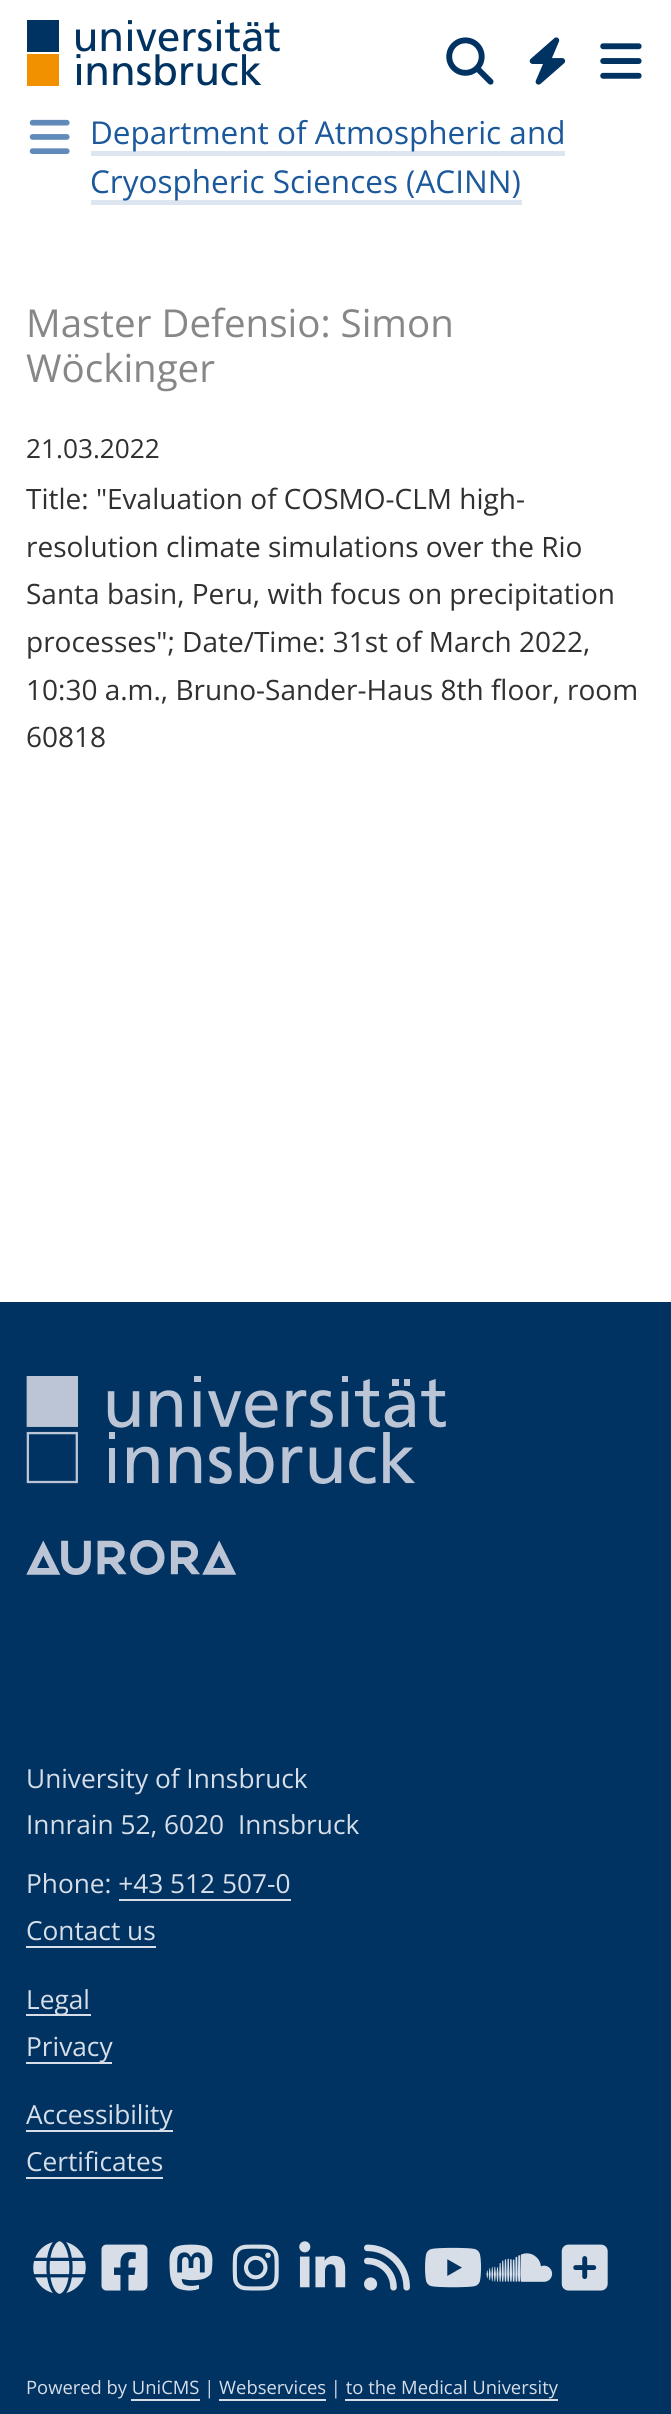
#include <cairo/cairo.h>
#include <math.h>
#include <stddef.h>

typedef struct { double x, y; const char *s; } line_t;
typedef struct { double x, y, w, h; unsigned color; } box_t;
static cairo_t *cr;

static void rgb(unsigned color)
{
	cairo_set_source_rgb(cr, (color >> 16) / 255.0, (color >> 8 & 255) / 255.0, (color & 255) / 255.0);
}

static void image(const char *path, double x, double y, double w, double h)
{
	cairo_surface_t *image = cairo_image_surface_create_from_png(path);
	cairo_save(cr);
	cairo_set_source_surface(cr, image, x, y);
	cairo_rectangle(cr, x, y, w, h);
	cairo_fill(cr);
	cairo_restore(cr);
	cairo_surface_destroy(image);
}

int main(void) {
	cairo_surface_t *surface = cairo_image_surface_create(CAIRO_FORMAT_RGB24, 671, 2414);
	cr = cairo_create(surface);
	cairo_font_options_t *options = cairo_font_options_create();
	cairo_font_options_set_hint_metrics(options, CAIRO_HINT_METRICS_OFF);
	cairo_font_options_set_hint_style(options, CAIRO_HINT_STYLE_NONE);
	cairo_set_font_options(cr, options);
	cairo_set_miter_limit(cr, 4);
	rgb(0xffffff);
	cairo_paint(cr);
	image("img/1.png", 27, 20, 253, 66);
	image("img/2.png", 446, 37, 48, 48);
	image("img/3.png", 529, 37, 37, 48);
	image("img/4.png", 600, 43, 42, 36);
	image("img/5.png", 29, 119, 41, 35);
	{
		static const box_t items[] = {
			{91, 151, 474, 5, 0xdde6f0},
			{91, 200, 431, 5, 0xdde6f0},
			{0, 1302, 671, 1112, 0x003362},
		};
		for (size_t i = 0; i < sizeof items / sizeof *items; i++) {
			rgb(items[i].color);
			cairo_rectangle(cr, items[i].x, items[i].y, items[i].w, items[i].h);
			cairo_fill(cr);
		}
	}
	image("img/6.png", 26, 1376, 420, 108);
	image("img/7.png", 26, 1540, 210, 35);
	{
		static const box_t items[] = {
			{119, 1899, 172, 2, 0xd7dee8},
			{26, 1946, 130, 2, 0xd7dee8},
			{26, 2014, 65, 2, 0xd7dee8},
			{26, 2062, 86, 2, 0xd7dee8},
			{26, 2130, 147, 2, 0xd7dee8},
			{26, 2177, 137, 2, 0xd7dee8},
		};
		for (size_t i = 0; i < sizeof items / sizeof *items; i++) {
			rgb(items[i].color);
			cairo_rectangle(cr, items[i].x, items[i].y, items[i].w, items[i].h);
			cairo_fill(cr);
		}
	}
	image("img/8.png", 33, 2241, 53, 53);
	image("img/9.png", 101, 2244, 47, 47);
	image("img/10.png", 169, 2244, 44, 47);
	image("img/11.png", 232, 2244, 47, 47);
	image("img/12.png", 299, 2241, 47, 47);
	image("img/13.png", 364, 2244, 46, 47);
	image("img/14.png", 425, 2247, 57, 41);
	image("img/15.png", 486, 2253, 67, 29);
	image("img/16.png", 561, 2244, 47, 47);
	{
		static const box_t items[] = {
			{131, 2399, 69, 2, 0xd7dee8},
			{219, 2399, 107, 2, 0xd7dee8},
			{345, 2399, 213, 2, 0xd7dee8},
		};
		for (size_t i = 0; i < sizeof items / sizeof *items; i++) {
			rgb(items[i].color);
			cairo_rectangle(cr, items[i].x, items[i].y, items[i].w, items[i].h);
			cairo_fill(cr);
		}
	}
	cairo_select_font_face(cr, "Open Sans", CAIRO_FONT_SLANT_NORMAL, CAIRO_FONT_WEIGHT_NORMAL);
	cairo_set_font_size(cr, 31.5);
	rgb(0x1b599c);
	cairo_move_to(cr, 90, 144);
	cairo_show_text(cr, "Department of Atmospheric and");
	cairo_move_to(cr, 90, 193);
	cairo_show_text(cr, "Cryospheric Sciences (ACINN)");
	cairo_set_font_size(cr, 38.5);
	rgb(0x878787);
	cairo_move_to(cr, 26, 337);
	cairo_show_text(cr, "Master Defensio: Simon");
	cairo_move_to(cr, 26, 382);
	cairo_show_text(cr, "Wöckinger");
	cairo_set_font_size(cr, 26.25);
	rgb(0x303030);
	cairo_move_to(cr, 26, 458);
	cairo_show_text(cr, "21.03.2022");
	cairo_set_font_size(cr, 28);
	{
		static const line_t items[] = {
			{26, 509, "Title: \"Evaluation of COSMO-CLM high-"},
			{26, 557, "resolution climate simulations over the Rio"},
			{26, 604, "Santa basin, Peru, with focus on precipitation"},
			{26, 652, "processes\"; Date/Time: 31st of March 2022,"},
			{26, 700, "10:30 a.m., Bruno-Sander-Haus 8th floor, room"},
			{26, 747, "60818"},
		};
		for (size_t i = 0; i < sizeof items / sizeof *items; i++) {
			cairo_move_to(cr, items[i].x, items[i].y);
			cairo_show_text(cr, items[i].s);
		}
	}
	cairo_set_font_size(cr, 26.25);
	rgb(0xd7dee8);
	{
		static const line_t items[] = {
			{26, 1788, "University of Innsbruck"},
			{26, 1834, "Innrain 52, 6020"},
			{238, 1834, "Innsbruck"},
			{26, 1893, "Phone: +43 512 507-0"},
			{26, 1940, "Contact us"},
			{26, 2009, "Legal"},
			{26, 2056, "Privacy"},
			{26, 2124, "Accessibility"},
			{26, 2171, "Certificates"},
		};
		for (size_t i = 0; i < sizeof items / sizeof *items; i++) {
			cairo_move_to(cr, items[i].x, items[i].y);
			cairo_show_text(cr, items[i].s);
		}
	}
	cairo_set_font_size(cr, 18.4);
	cairo_move_to(cr, 26, 2394);
	cairo_show_text(cr, "Powered by UniCMS | Webservices | to the Medical University");
	cairo_surface_write_to_png(surface, "page.png");
	cairo_font_options_destroy(options);
	cairo_destroy(cr);
	cairo_surface_destroy(surface);
	return 0;
}
